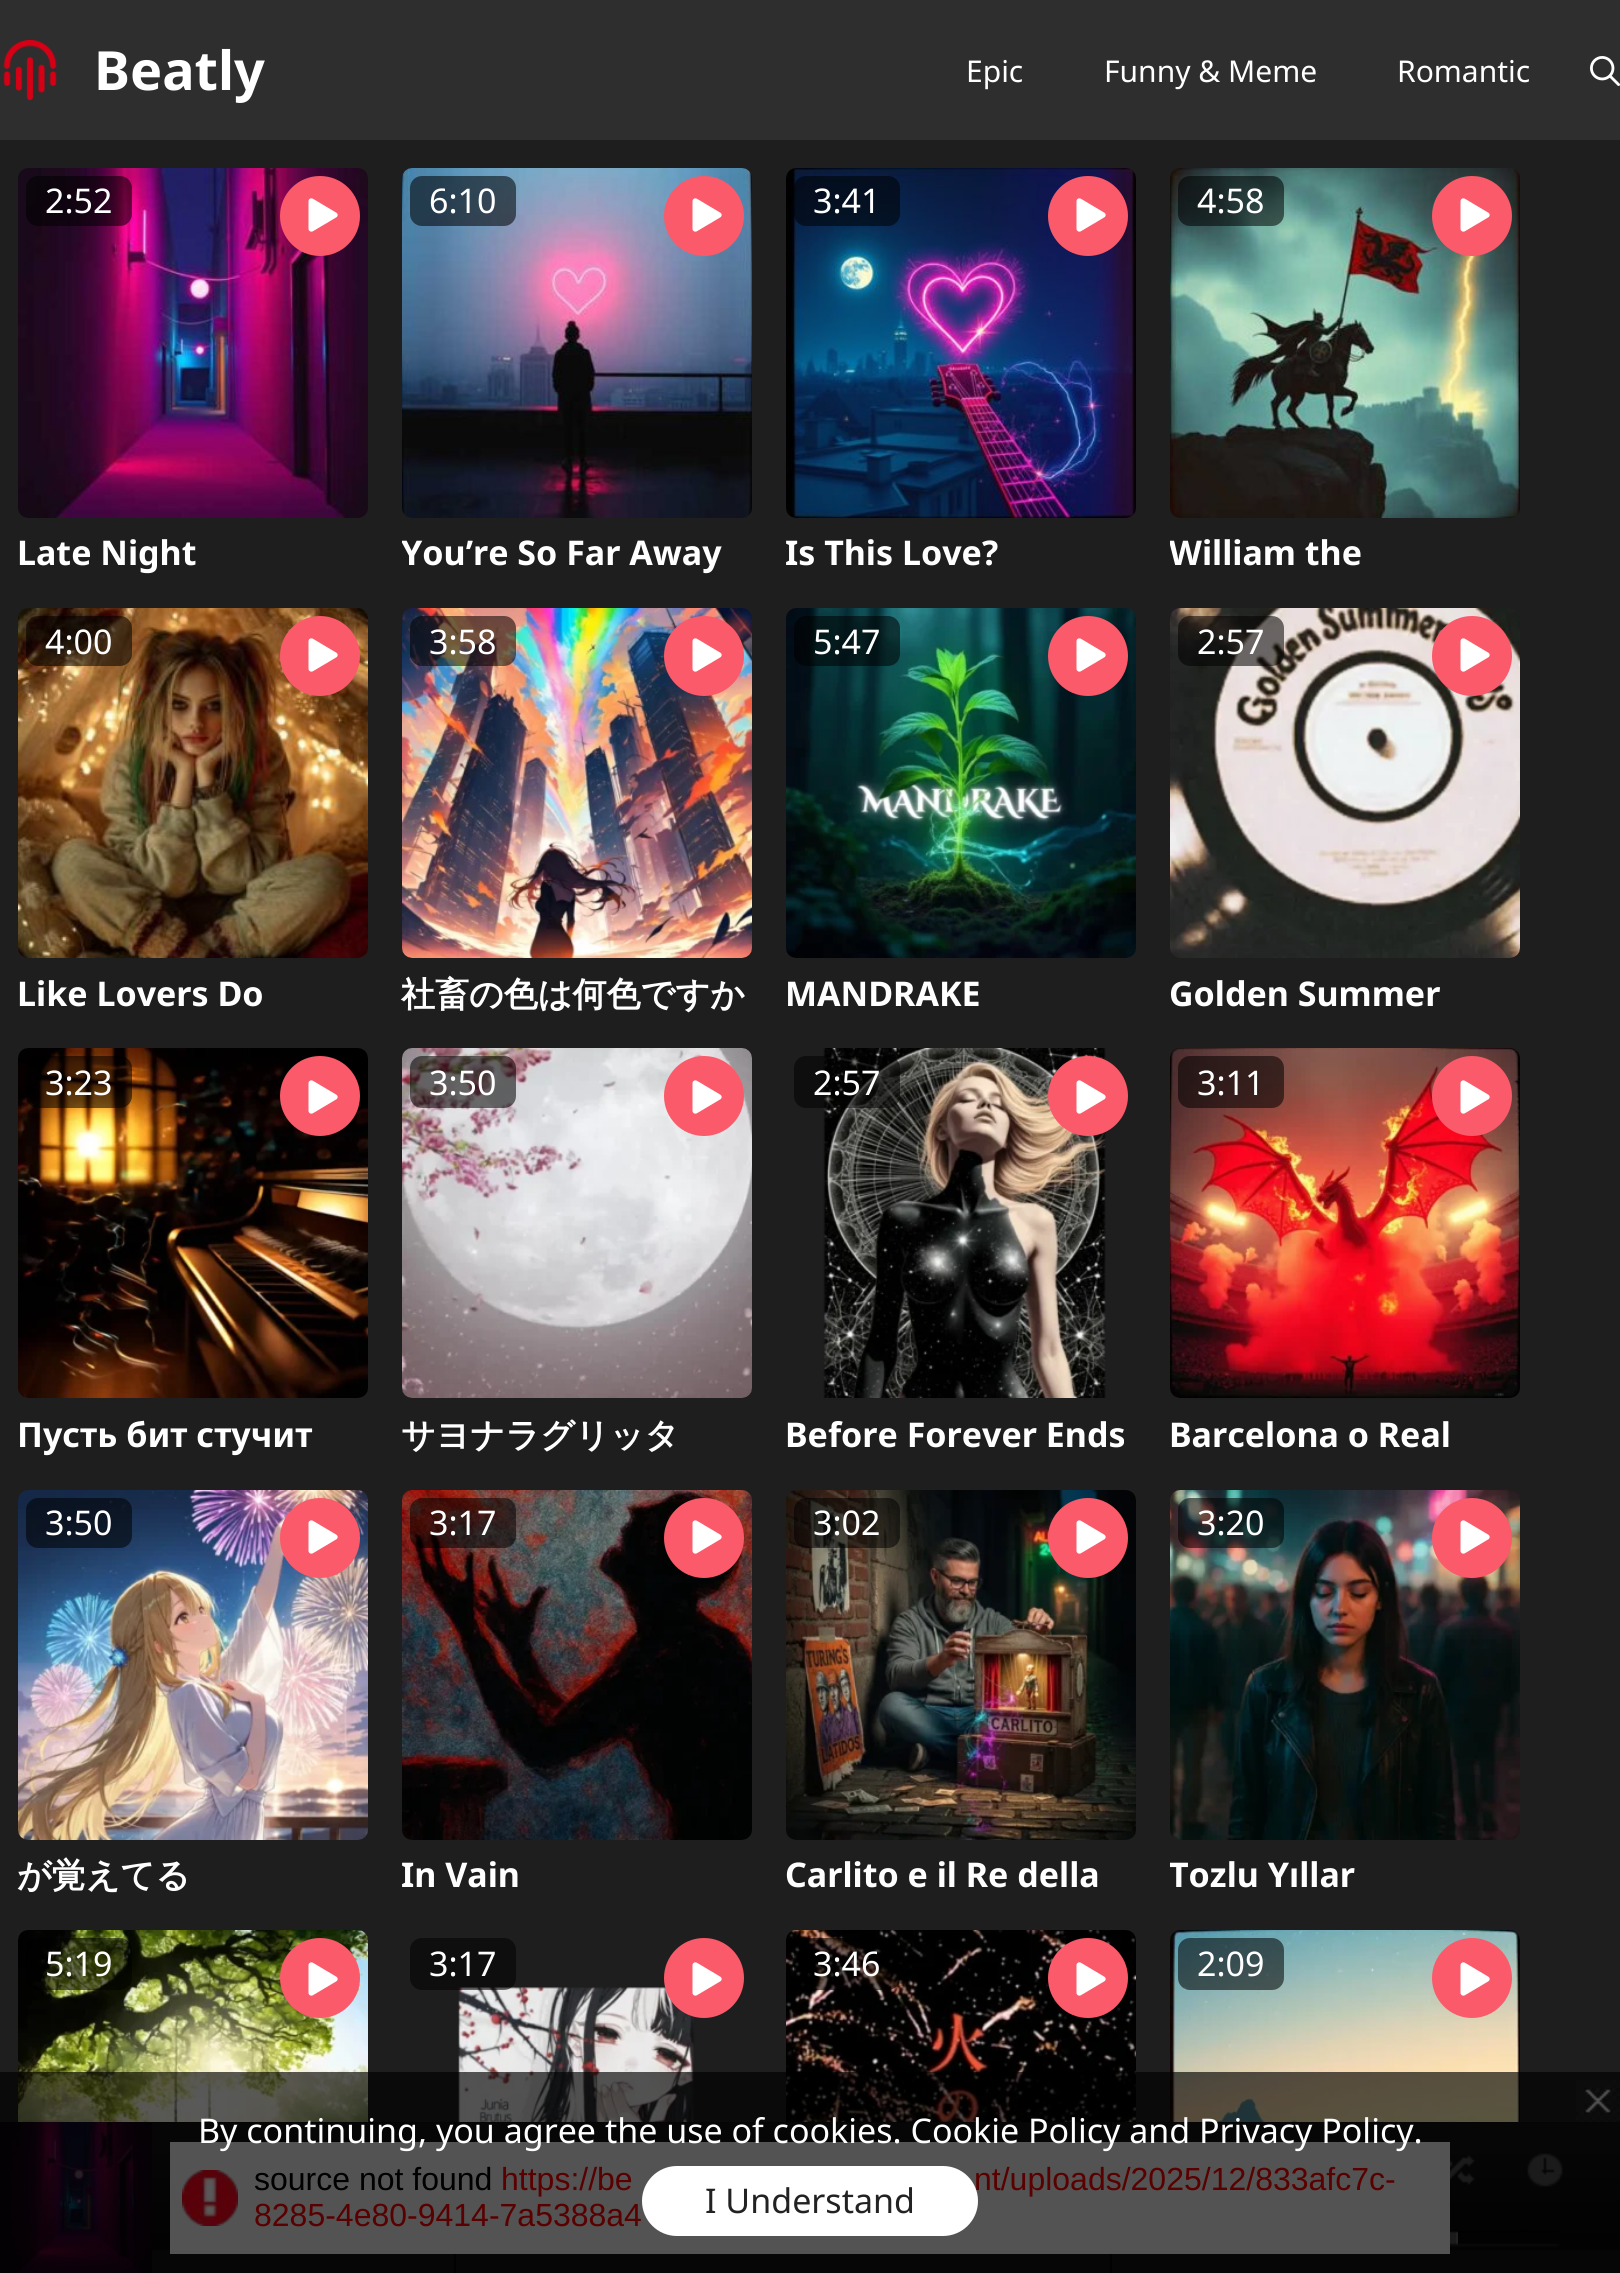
#include <cairo/cairo.h>
#include <math.h>
#include <stddef.h>

typedef struct { double x, y; const char *s; } line_t;
static cairo_t *cr;

static void rgb(unsigned color)
{
	cairo_set_source_rgb(cr, (color >> 16) / 255.0, (color >> 8 & 255) / 255.0, (color & 255) / 255.0);
}

static void rrect(double x, double y, double w, double h, double r)
{
	cairo_new_sub_path(cr);
	cairo_arc(cr, x + w - r, y + h - r, r, 0, M_PI / 2);
	cairo_arc(cr, x + r, y + h - r, r, M_PI / 2, M_PI);
	cairo_arc(cr, x + r, y + r, r, M_PI, 1.5 * M_PI);
	cairo_arc(cr, x + w - r, y + r, r, 1.5 * M_PI, 2 * M_PI);
	cairo_close_path(cr);
}

static void image(const char *path, double x, double y, double w, double h)
{
	cairo_surface_t *image = cairo_image_surface_create_from_png(path);
	cairo_save(cr);
	cairo_set_source_surface(cr, image, x, y);
	cairo_rectangle(cr, x, y, w, h);
	cairo_fill(cr);
	cairo_restore(cr);
	cairo_surface_destroy(image);
}

int main(void) {
	cairo_surface_t *surface = cairo_image_surface_create(CAIRO_FORMAT_RGB24, 1620, 2273);
	cr = cairo_create(surface);
	cairo_font_options_t *options = cairo_font_options_create();
	cairo_font_options_set_hint_metrics(options, CAIRO_HINT_METRICS_OFF);
	cairo_font_options_set_hint_style(options, CAIRO_HINT_STYLE_NONE);
	cairo_set_font_options(cr, options);
	cairo_set_miter_limit(cr, 4);
	rgb(0x1e1e1e);
	cairo_paint(cr);
	rgb(0x2e2e2e);
	cairo_rectangle(cr, 0, 0, 1620, 140);
	cairo_fill(cr);
	image("img/1.png", 3, 40, 54, 60);
	image("img/2.png", 1590, 56, 30, 30);
	image("img/3.png", 18, 168, 350, 350);
	cairo_set_source_rgba(cr, 0, 0, 0, 0.55);
	rrect(26, 176, 106, 50, 12);
	cairo_fill(cr);
	rgb(0xfa5a69);
	cairo_arc(cr, 320, 216, 40, 0, 2 * M_PI);
	cairo_fill(cr);
	image("img/4.png", 308, 198, 30, 34);
	image("img/5.png", 402, 168, 350, 350);
	cairo_set_source_rgba(cr, 0, 0, 0, 0.55);
	rrect(410, 176, 106, 50, 12);
	cairo_fill(cr);
	rgb(0xfa5a69);
	cairo_arc(cr, 704, 216, 40, 0, 2 * M_PI);
	cairo_fill(cr);
	image("img/4.png", 692, 198, 30, 34);
	image("img/6.png", 786, 168, 350, 350);
	cairo_set_source_rgba(cr, 0, 0, 0, 0.55);
	rrect(794, 176, 106, 50, 12);
	cairo_fill(cr);
	rgb(0xfa5a69);
	cairo_arc(cr, 1088, 216, 40, 0, 2 * M_PI);
	cairo_fill(cr);
	image("img/4.png", 1076, 198, 30, 34);
	image("img/7.png", 1170, 168, 350, 350);
	cairo_set_source_rgba(cr, 0, 0, 0, 0.55);
	rrect(1178, 176, 106, 50, 12);
	cairo_fill(cr);
	rgb(0xfa5a69);
	cairo_arc(cr, 1472, 216, 40, 0, 2 * M_PI);
	cairo_fill(cr);
	image("img/4.png", 1460, 198, 30, 34);
	image("img/8.png", 18, 608, 350, 350);
	cairo_set_source_rgba(cr, 0, 0, 0, 0.55);
	rrect(26, 616, 106, 50, 12);
	cairo_fill(cr);
	rgb(0xfa5a69);
	cairo_arc(cr, 320, 656, 40, 0, 2 * M_PI);
	cairo_fill(cr);
	image("img/4.png", 308, 638, 30, 34);
	image("img/9.png", 402, 608, 350, 350);
	cairo_set_source_rgba(cr, 0, 0, 0, 0.55);
	rrect(410, 616, 106, 50, 12);
	cairo_fill(cr);
	rgb(0xfa5a69);
	cairo_arc(cr, 704, 656, 40, 0, 2 * M_PI);
	cairo_fill(cr);
	image("img/4.png", 692, 638, 30, 34);
	image("img/10.png", 786, 608, 350, 350);
	cairo_set_source_rgba(cr, 0, 0, 0, 0.55);
	rrect(794, 616, 106, 50, 12);
	cairo_fill(cr);
	rgb(0xfa5a69);
	cairo_arc(cr, 1088, 656, 40, 0, 2 * M_PI);
	cairo_fill(cr);
	image("img/4.png", 1076, 638, 30, 34);
	image("img/11.png", 1170, 608, 350, 350);
	cairo_set_source_rgba(cr, 0, 0, 0, 0.55);
	rrect(1178, 616, 106, 50, 12);
	cairo_fill(cr);
	rgb(0xfa5a69);
	cairo_arc(cr, 1472, 656, 40, 0, 2 * M_PI);
	cairo_fill(cr);
	image("img/4.png", 1460, 638, 30, 34);
	image("img/12.png", 18, 1048, 350, 350);
	cairo_set_source_rgba(cr, 0, 0, 0, 0.55);
	rrect(26, 1056, 106, 52, 12);
	cairo_fill(cr);
	rgb(0xfa5a69);
	cairo_arc(cr, 320, 1096, 40, 0, 2 * M_PI);
	cairo_fill(cr);
	image("img/4.png", 308, 1080, 30, 34);
	image("img/13.png", 402, 1048, 350, 350);
	cairo_set_source_rgba(cr, 0, 0, 0, 0.55);
	rrect(410, 1056, 106, 52, 12);
	cairo_fill(cr);
	rgb(0xfa5a69);
	cairo_arc(cr, 704, 1096, 40, 0, 2 * M_PI);
	cairo_fill(cr);
	image("img/4.png", 692, 1080, 30, 34);
	image("img/14.png", 823, 1048, 283, 350);
	cairo_set_source_rgba(cr, 0, 0, 0, 0.55);
	rrect(794, 1056, 106, 52, 12);
	cairo_fill(cr);
	rgb(0xfa5a69);
	cairo_arc(cr, 1088, 1096, 40, 0, 2 * M_PI);
	cairo_fill(cr);
	image("img/4.png", 1076, 1080, 30, 34);
	image("img/15.png", 1170, 1048, 350, 350);
	cairo_set_source_rgba(cr, 0, 0, 0, 0.55);
	rrect(1178, 1056, 106, 52, 12);
	cairo_fill(cr);
	rgb(0xfa5a69);
	cairo_arc(cr, 1472, 1096, 40, 0, 2 * M_PI);
	cairo_fill(cr);
	image("img/4.png", 1460, 1080, 30, 34);
	image("img/16.png", 18, 1490, 350, 350);
	cairo_set_source_rgba(cr, 0, 0, 0, 0.55);
	rrect(26, 1498, 106, 50, 12);
	cairo_fill(cr);
	rgb(0xfa5a69);
	cairo_arc(cr, 320, 1538, 40, 0, 2 * M_PI);
	cairo_fill(cr);
	image("img/4.png", 308, 1520, 30, 34);
	image("img/17.png", 402, 1490, 350, 350);
	cairo_set_source_rgba(cr, 0, 0, 0, 0.55);
	rrect(410, 1498, 106, 50, 12);
	cairo_fill(cr);
	rgb(0xfa5a69);
	cairo_arc(cr, 704, 1538, 40, 0, 2 * M_PI);
	cairo_fill(cr);
	image("img/4.png", 692, 1520, 30, 34);
	image("img/18.png", 786, 1490, 350, 350);
	cairo_set_source_rgba(cr, 0, 0, 0, 0.55);
	rrect(794, 1498, 106, 50, 12);
	cairo_fill(cr);
	rgb(0xfa5a69);
	cairo_arc(cr, 1088, 1538, 40, 0, 2 * M_PI);
	cairo_fill(cr);
	image("img/4.png", 1076, 1520, 30, 34);
	image("img/19.png", 1170, 1490, 350, 350);
	cairo_set_source_rgba(cr, 0, 0, 0, 0.55);
	rrect(1178, 1498, 106, 50, 12);
	cairo_fill(cr);
	rgb(0xfa5a69);
	cairo_arc(cr, 1472, 1538, 40, 0, 2 * M_PI);
	cairo_fill(cr);
	image("img/4.png", 1460, 1520, 30, 34);
	image("img/20.png", 18, 1930, 350, 192);
	cairo_set_source_rgba(cr, 0, 0, 0, 0.55);
	rrect(26, 1938, 106, 52, 12);
	cairo_fill(cr);
	rgb(0xfa5a69);
	cairo_arc(cr, 320, 1978, 40, 0, 2 * M_PI);
	cairo_fill(cr);
	image("img/4.png", 308, 1962, 30, 34);
	image("img/21.png", 458, 1987, 237, 135);
	cairo_set_source_rgba(cr, 0, 0, 0, 0.55);
	rrect(410, 1938, 106, 52, 12);
	cairo_fill(cr);
	rgb(0xfa5a69);
	cairo_arc(cr, 704, 1978, 40, 0, 2 * M_PI);
	cairo_fill(cr);
	image("img/4.png", 692, 1962, 30, 34);
	image("img/22.png", 786, 1930, 350, 192);
	cairo_set_source_rgba(cr, 0, 0, 0, 0.55);
	rrect(794, 1938, 106, 52, 12);
	cairo_fill(cr);
	rgb(0xfa5a69);
	cairo_arc(cr, 1088, 1978, 40, 0, 2 * M_PI);
	cairo_fill(cr);
	image("img/4.png", 1076, 1962, 30, 34);
	image("img/23.png", 1170, 1930, 350, 192);
	cairo_set_source_rgba(cr, 0, 0, 0, 0.55);
	rrect(1178, 1938, 106, 52, 12);
	cairo_fill(cr);
	rgb(0xfa5a69);
	cairo_arc(cr, 1472, 1978, 40, 0, 2 * M_PI);
	cairo_fill(cr);
	image("img/4.png", 1460, 1962, 30, 34);
	image("img/24.png", 1576, 2080, 44, 42);
	image("img/25.png", 152, 2122, 1468, 151);
	image("img/26.png", 0, 2122, 152, 151);
	image("img/27.png", 452, 2122, 4, 151);
	image("img/27.png", 1108, 2122, 4, 151);
	image("img/28.png", 1450, 2155, 25, 30);
	image("img/29.png", 1527, 2153, 36, 34);
	image("img/30.png", 1450, 2230, 106, 18);
	image("img/31.png", 1556, 2230, 4, 18);
	image("img/32.png", 1450, 2231, 6, 15);
	image("img/33.png", 1456, 2231, 2, 15);
	cairo_set_source_rgba(cr, 0, 0, 0, 0.6);
	cairo_rectangle(cr, 0, 2122, 1620, 151);
	cairo_fill(cr);
	rgb(0xeeeeee);
	cairo_rectangle(cr, 170, 2142, 1280, 112);
	cairo_fill(cr);
	image("img/34.png", 182, 2170, 56, 56);
	cairo_select_font_face(cr, "Noto Sans", CAIRO_FONT_SLANT_NORMAL, CAIRO_FONT_WEIGHT_BOLD);
	cairo_set_font_size(cr, 54);
	rgb(0xffffff);
	cairo_move_to(cr, 94, 90);
	cairo_show_text(cr, "Beatly");
	cairo_select_font_face(cr, "Noto Sans", CAIRO_FONT_SLANT_NORMAL, CAIRO_FONT_WEIGHT_NORMAL);
	cairo_set_font_size(cr, 30);
	{
		static const line_t items[] = {
			{966, 82, "Epic"},
			{1104, 82, "Funny & Meme"},
			{1397, 82, "Romantic"},
		};
		for (size_t i = 0; i < sizeof items / sizeof *items; i++) {
			cairo_move_to(cr, items[i].x, items[i].y);
			cairo_show_text(cr, items[i].s);
		}
	}
	cairo_set_font_size(cr, 34);
	cairo_move_to(cr, 45, 213);
	cairo_show_text(cr, "2:52");
	cairo_select_font_face(cr, "Noto Sans", CAIRO_FONT_SLANT_NORMAL, CAIRO_FONT_WEIGHT_BOLD);
	cairo_move_to(cr, 17, 565);
	cairo_show_text(cr, "Late Night");
	cairo_select_font_face(cr, "Noto Sans", CAIRO_FONT_SLANT_NORMAL, CAIRO_FONT_WEIGHT_NORMAL);
	cairo_move_to(cr, 429, 213);
	cairo_show_text(cr, "6:10");
	cairo_save(cr);
	cairo_rectangle(cr, 402, 534, 350, 40);
	cairo_clip(cr);
	cairo_select_font_face(cr, "Noto Sans", CAIRO_FONT_SLANT_NORMAL, CAIRO_FONT_WEIGHT_BOLD);
	cairo_move_to(cr, 401, 565);
	cairo_show_text(cr, "You’re So Far Away");
	cairo_restore(cr);
	cairo_move_to(cr, 813, 213);
	cairo_show_text(cr, "3:41");
	cairo_select_font_face(cr, "Noto Sans", CAIRO_FONT_SLANT_NORMAL, CAIRO_FONT_WEIGHT_BOLD);
	cairo_move_to(cr, 785, 565);
	cairo_show_text(cr, "Is This Love?");
	cairo_select_font_face(cr, "Noto Sans", CAIRO_FONT_SLANT_NORMAL, CAIRO_FONT_WEIGHT_NORMAL);
	cairo_move_to(cr, 1197, 213);
	cairo_show_text(cr, "4:58");
	cairo_save(cr);
	cairo_rectangle(cr, 1170, 534, 350, 40);
	cairo_clip(cr);
	cairo_select_font_face(cr, "Noto Sans", CAIRO_FONT_SLANT_NORMAL, CAIRO_FONT_WEIGHT_BOLD);
	cairo_move_to(cr, 1169, 565);
	cairo_show_text(cr, "William the");
	cairo_restore(cr);
	cairo_move_to(cr, 45, 654);
	cairo_show_text(cr, "4:00");
	cairo_select_font_face(cr, "Noto Sans", CAIRO_FONT_SLANT_NORMAL, CAIRO_FONT_WEIGHT_BOLD);
	cairo_move_to(cr, 17, 1006);
	cairo_show_text(cr, "Like Lovers Do");
	cairo_select_font_face(cr, "Noto Sans", CAIRO_FONT_SLANT_NORMAL, CAIRO_FONT_WEIGHT_NORMAL);
	cairo_move_to(cr, 429, 654);
	cairo_show_text(cr, "3:58");
	cairo_select_font_face(cr, "WenQuanYi Zen Hei", CAIRO_FONT_SLANT_NORMAL, CAIRO_FONT_WEIGHT_BOLD);
	cairo_move_to(cr, 401, 1006);
	cairo_show_text(cr, "社畜の色は何色ですか");
	cairo_select_font_face(cr, "Noto Sans", CAIRO_FONT_SLANT_NORMAL, CAIRO_FONT_WEIGHT_NORMAL);
	cairo_move_to(cr, 813, 654);
	cairo_show_text(cr, "5:47");
	cairo_select_font_face(cr, "Noto Sans", CAIRO_FONT_SLANT_NORMAL, CAIRO_FONT_WEIGHT_BOLD);
	cairo_move_to(cr, 785, 1006);
	cairo_show_text(cr, "MANDRAKE");
	cairo_select_font_face(cr, "Noto Sans", CAIRO_FONT_SLANT_NORMAL, CAIRO_FONT_WEIGHT_NORMAL);
	cairo_move_to(cr, 1197, 654);
	cairo_show_text(cr, "2:57");
	cairo_select_font_face(cr, "Noto Sans", CAIRO_FONT_SLANT_NORMAL, CAIRO_FONT_WEIGHT_BOLD);
	cairo_move_to(cr, 1169, 1006);
	cairo_show_text(cr, "Golden Summer");
	cairo_select_font_face(cr, "Noto Sans", CAIRO_FONT_SLANT_NORMAL, CAIRO_FONT_WEIGHT_NORMAL);
	cairo_move_to(cr, 45, 1095);
	cairo_show_text(cr, "3:23");
	cairo_select_font_face(cr, "Noto Sans", CAIRO_FONT_SLANT_NORMAL, CAIRO_FONT_WEIGHT_BOLD);
	cairo_move_to(cr, 17, 1447);
	cairo_show_text(cr, "Пусть бит стучит");
	cairo_select_font_face(cr, "Noto Sans", CAIRO_FONT_SLANT_NORMAL, CAIRO_FONT_WEIGHT_NORMAL);
	cairo_move_to(cr, 429, 1095);
	cairo_show_text(cr, "3:50");
	cairo_select_font_face(cr, "WenQuanYi Zen Hei", CAIRO_FONT_SLANT_NORMAL, CAIRO_FONT_WEIGHT_BOLD);
	cairo_move_to(cr, 401, 1447);
	cairo_show_text(cr, "サヨナラグリッタ");
	cairo_select_font_face(cr, "Noto Sans", CAIRO_FONT_SLANT_NORMAL, CAIRO_FONT_WEIGHT_NORMAL);
	cairo_move_to(cr, 813, 1095);
	cairo_show_text(cr, "2:57");
	cairo_select_font_face(cr, "Noto Sans", CAIRO_FONT_SLANT_NORMAL, CAIRO_FONT_WEIGHT_BOLD);
	cairo_move_to(cr, 785, 1447);
	cairo_show_text(cr, "Before Forever Ends");
	cairo_select_font_face(cr, "Noto Sans", CAIRO_FONT_SLANT_NORMAL, CAIRO_FONT_WEIGHT_NORMAL);
	cairo_move_to(cr, 1197, 1095);
	cairo_show_text(cr, "3:11");
	cairo_select_font_face(cr, "Noto Sans", CAIRO_FONT_SLANT_NORMAL, CAIRO_FONT_WEIGHT_BOLD);
	cairo_move_to(cr, 1169, 1447);
	cairo_show_text(cr, "Barcelona o Real");
	cairo_select_font_face(cr, "Noto Sans", CAIRO_FONT_SLANT_NORMAL, CAIRO_FONT_WEIGHT_NORMAL);
	cairo_move_to(cr, 45, 1535);
	cairo_show_text(cr, "3:50");
	cairo_select_font_face(cr, "WenQuanYi Zen Hei", CAIRO_FONT_SLANT_NORMAL, CAIRO_FONT_WEIGHT_BOLD);
	cairo_move_to(cr, 17, 1887);
	cairo_show_text(cr, "が覚えてる");
	cairo_select_font_face(cr, "Noto Sans", CAIRO_FONT_SLANT_NORMAL, CAIRO_FONT_WEIGHT_NORMAL);
	cairo_move_to(cr, 429, 1535);
	cairo_show_text(cr, "3:17");
	cairo_select_font_face(cr, "Noto Sans", CAIRO_FONT_SLANT_NORMAL, CAIRO_FONT_WEIGHT_BOLD);
	cairo_move_to(cr, 401, 1887);
	cairo_show_text(cr, "In Vain");
	cairo_select_font_face(cr, "Noto Sans", CAIRO_FONT_SLANT_NORMAL, CAIRO_FONT_WEIGHT_NORMAL);
	cairo_move_to(cr, 813, 1535);
	cairo_show_text(cr, "3:02");
	cairo_select_font_face(cr, "Noto Sans", CAIRO_FONT_SLANT_NORMAL, CAIRO_FONT_WEIGHT_BOLD);
	cairo_move_to(cr, 785, 1887);
	cairo_show_text(cr, "Carlito e il Re della");
	cairo_select_font_face(cr, "Noto Sans", CAIRO_FONT_SLANT_NORMAL, CAIRO_FONT_WEIGHT_NORMAL);
	cairo_move_to(cr, 1197, 1535);
	cairo_show_text(cr, "3:20");
	cairo_save(cr);
	cairo_rectangle(cr, 1170, 1856, 350, 40);
	cairo_clip(cr);
	cairo_select_font_face(cr, "Noto Sans", CAIRO_FONT_SLANT_NORMAL, CAIRO_FONT_WEIGHT_BOLD);
	cairo_move_to(cr, 1169, 1887);
	cairo_show_text(cr, "Tozlu Yıllar");
	cairo_restore(cr);
	{
		static const line_t items[] = {
			{45, 1976, "5:19"},
			{429, 1976, "3:17"},
			{813, 1976, "3:46"},
			{1197, 1976, "2:09"},
		};
		for (size_t i = 0; i < sizeof items / sizeof *items; i++) {
			cairo_move_to(cr, items[i].x, items[i].y);
			cairo_show_text(cr, items[i].s);
		}
	}
	cairo_select_font_face(cr, "Liberation Sans", CAIRO_FONT_SLANT_NORMAL, CAIRO_FONT_WEIGHT_NORMAL);
	cairo_set_font_size(cr, 32);
	rgb(0x000000);
	cairo_move_to(cr, 254, 2190);
	cairo_show_text(cr, "source not found");
	rgb(0xff0000);
	{
		static const line_t items[] = {
			{501, 2190, "https://be"},
			{974, 2190, "nt/uploads/2025/12/833afc7c-"},
			{254, 2226, "8285-4e80-9414-7a5388a4"},
		};
		for (size_t i = 0; i < sizeof items / sizeof *items; i++) {
			cairo_move_to(cr, items[i].x, items[i].y);
			cairo_show_text(cr, items[i].s);
		}
	}
	cairo_set_source_rgba(cr, 0, 0, 0, 0.65);
	cairo_rectangle(cr, 0, 2072, 1620, 201);
	cairo_fill(cr);
	rgb(0xffffff);
	rrect(642, 2166, 336, 70, 35);
	cairo_fill(cr);
	cairo_select_font_face(cr, "Noto Sans", CAIRO_FONT_SLANT_NORMAL, CAIRO_FONT_WEIGHT_NORMAL);
	cairo_set_font_size(cr, 34);
	rgb(0x222222);
	cairo_move_to(cr, 705, 2213);
	cairo_show_text(cr, "I Understand");
	rgb(0xffffff);
	cairo_move_to(cr, 198, 2143);
	cairo_show_text(cr, "By continuing, you agree the use of cookies. Cookie Policy and Privacy Policy.");
	cairo_surface_write_to_png(surface, "page.png");
	cairo_font_options_destroy(options);
	cairo_destroy(cr);
	cairo_surface_destroy(surface);
	return 0;
}
